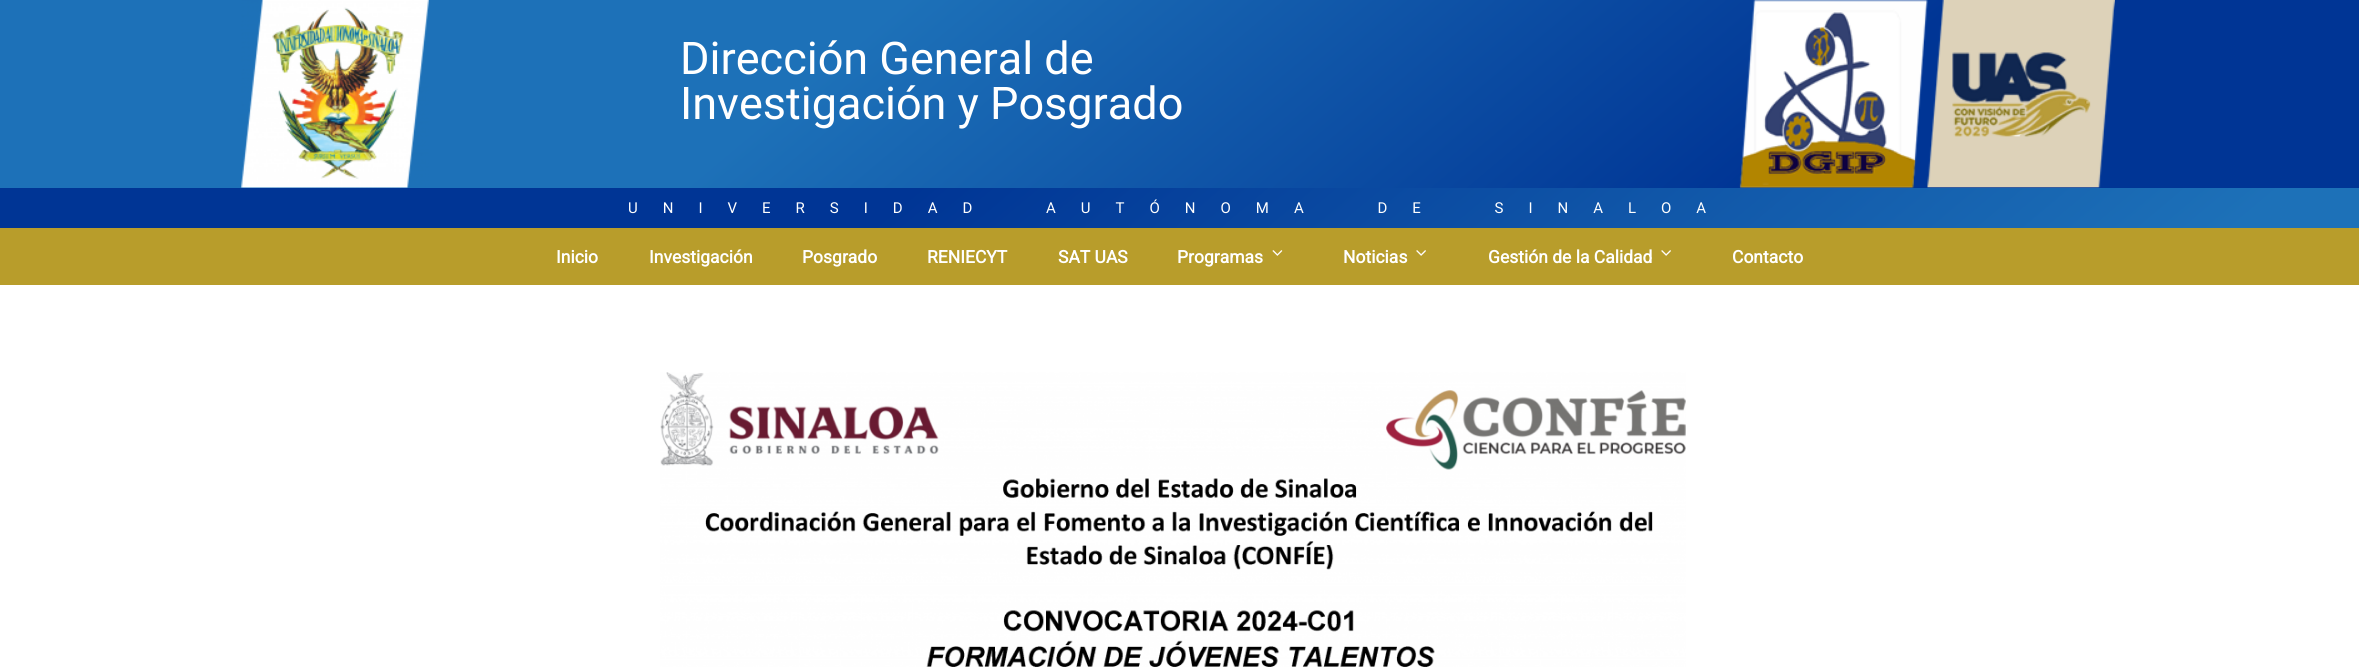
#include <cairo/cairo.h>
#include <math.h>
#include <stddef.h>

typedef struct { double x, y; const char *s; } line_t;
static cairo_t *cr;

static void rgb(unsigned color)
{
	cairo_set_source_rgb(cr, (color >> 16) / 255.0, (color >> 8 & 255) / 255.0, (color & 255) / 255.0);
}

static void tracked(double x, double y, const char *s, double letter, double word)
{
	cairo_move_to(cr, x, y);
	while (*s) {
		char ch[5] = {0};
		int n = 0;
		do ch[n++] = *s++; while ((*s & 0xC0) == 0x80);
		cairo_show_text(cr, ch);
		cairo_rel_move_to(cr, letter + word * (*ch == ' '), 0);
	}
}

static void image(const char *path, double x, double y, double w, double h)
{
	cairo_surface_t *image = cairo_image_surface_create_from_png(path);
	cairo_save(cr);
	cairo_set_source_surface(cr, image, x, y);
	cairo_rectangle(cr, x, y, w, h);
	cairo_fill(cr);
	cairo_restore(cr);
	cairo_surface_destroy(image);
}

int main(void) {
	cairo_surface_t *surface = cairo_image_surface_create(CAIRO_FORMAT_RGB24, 2359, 669);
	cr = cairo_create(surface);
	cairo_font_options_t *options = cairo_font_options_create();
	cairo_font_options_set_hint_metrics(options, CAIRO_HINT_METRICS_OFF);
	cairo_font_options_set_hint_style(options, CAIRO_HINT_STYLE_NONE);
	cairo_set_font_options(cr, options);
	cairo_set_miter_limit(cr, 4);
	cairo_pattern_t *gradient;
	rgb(0xffffff);
	cairo_paint(cr);
	gradient = cairo_pattern_create_linear(646, -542, 1714, 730);
	cairo_pattern_add_color_stop_rgba(gradient, 0.35, 0.114, 0.443, 0.722, 1);
	cairo_pattern_add_color_stop_rgba(gradient, 0.76, 0, 0.208, 0.584, 1);
	cairo_set_source(cr, gradient);
	cairo_pattern_destroy(gradient);
	cairo_rectangle(cr, 0, 0, 2359, 188);
	cairo_fill(cr);
	image("img/1.png", 241, 0, 188, 188);
	image("img/2.png", 1739, 0, 189, 188);
	image("img/3.png", 1927, 0, 188, 188);
	gradient = cairo_pattern_create_linear(683, -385, 1677, 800);
	cairo_pattern_add_color_stop_rgba(gradient, 0.38, 0, 0.208, 0.584, 1);
	cairo_pattern_add_color_stop_rgba(gradient, 0.95, 0.114, 0.443, 0.722, 1);
	cairo_set_source(cr, gradient);
	cairo_pattern_destroy(gradient);
	cairo_rectangle(cr, 0, 188, 2359, 40);
	cairo_fill(cr);
	rgb(0xb89d2b);
	cairo_rectangle(cr, 0, 228, 2359, 57);
	cairo_fill(cr);
	image("img/4.png", 1272, 250, 11, 6);
	image("img/5.png", 1416, 250, 10, 6);
	image("img/5.png", 1661, 250, 10, 6);
	image("img/6.png", 660, 372, 1026, 295);
	cairo_select_font_face(cr, "Roboto", CAIRO_FONT_SLANT_NORMAL, CAIRO_FONT_WEIGHT_NORMAL);
	cairo_set_font_size(cr, 45);
	rgb(0xffffff);
	cairo_move_to(cr, 680, 74);
	cairo_show_text(cr, "Dirección General de");
	cairo_move_to(cr, 680, 119);
	cairo_show_text(cr, "Investigación y Posgrado");
	cairo_set_font_size(cr, 15);
	tracked(628, 213, "UNIVERSIDAD AUTÓNOMA DE SINALOA", 25, 20);
	cairo_select_font_face(cr, "Roboto", CAIRO_FONT_SLANT_NORMAL, CAIRO_FONT_WEIGHT_BOLD);
	cairo_set_font_size(cr, 17.5);
	{
		static const line_t items[] = {
			{556, 263, "Inicio"},
			{649, 263, "Investigación"},
			{802, 263, "Posgrado"},
			{927, 263, "RENIECYT"},
			{1058, 263, "SAT UAS"},
			{1177, 263, "Programas"},
			{1343, 263, "Noticias"},
			{1488, 263, "Gestión de la Calidad"},
			{1732, 263, "Contacto"},
		};
		for (size_t i = 0; i < sizeof items / sizeof *items; i++) {
			cairo_move_to(cr, items[i].x, items[i].y);
			cairo_show_text(cr, items[i].s);
		}
	}
	cairo_surface_write_to_png(surface, "page.png");
	cairo_font_options_destroy(options);
	cairo_destroy(cr);
	cairo_surface_destroy(surface);
	return 0;
}
